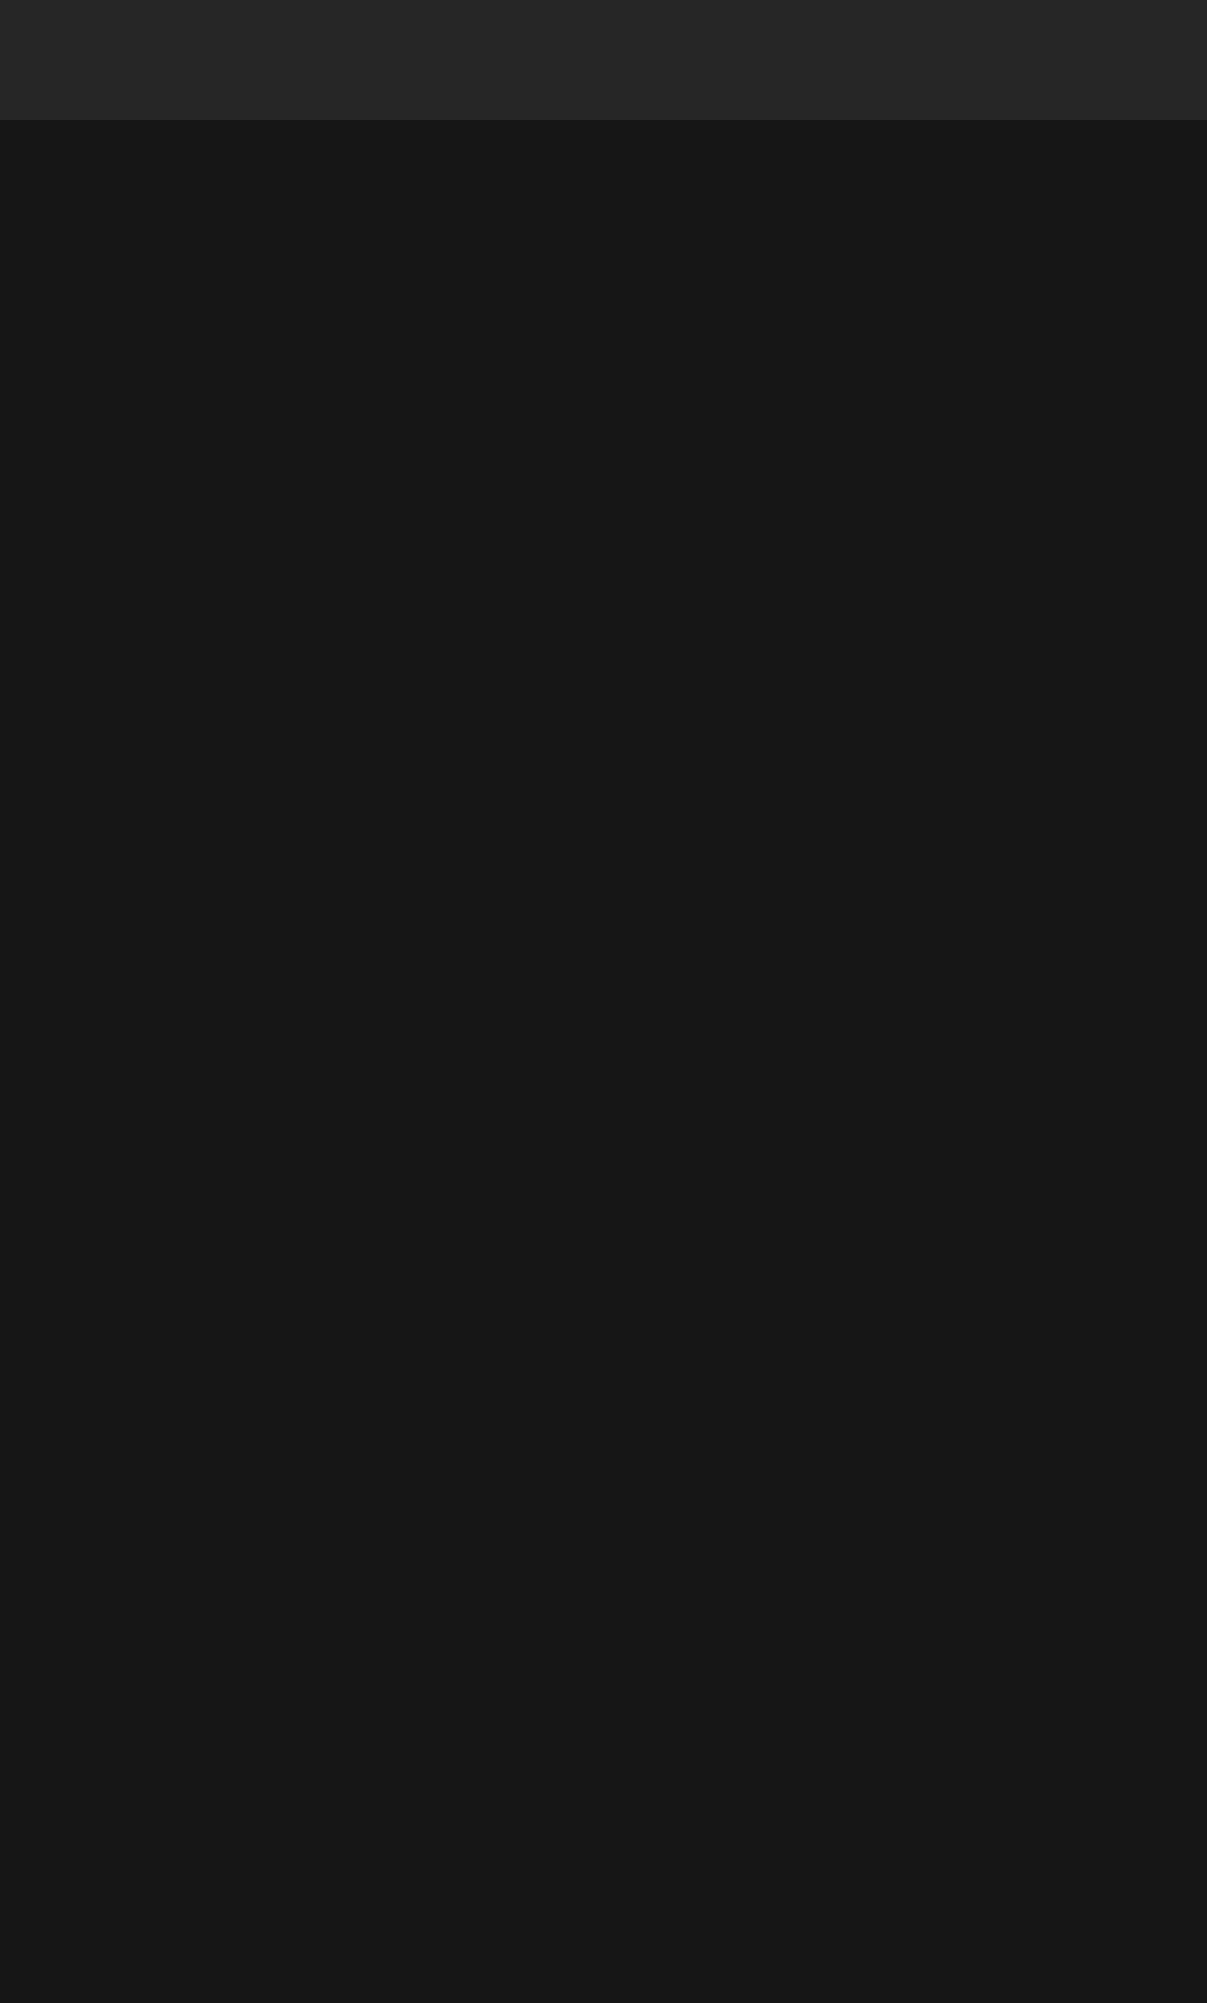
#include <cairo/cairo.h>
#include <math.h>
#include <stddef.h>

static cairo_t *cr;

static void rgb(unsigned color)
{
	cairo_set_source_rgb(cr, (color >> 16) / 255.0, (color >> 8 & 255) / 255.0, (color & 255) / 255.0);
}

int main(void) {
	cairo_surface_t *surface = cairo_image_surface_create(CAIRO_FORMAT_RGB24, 1207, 2003);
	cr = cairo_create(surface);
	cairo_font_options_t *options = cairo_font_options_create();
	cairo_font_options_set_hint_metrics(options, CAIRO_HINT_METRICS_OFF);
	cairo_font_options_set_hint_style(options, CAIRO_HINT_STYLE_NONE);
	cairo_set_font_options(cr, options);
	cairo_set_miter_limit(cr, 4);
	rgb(0x262626);
	cairo_paint(cr);
	rgb(0x161616);
	cairo_rectangle(cr, 0, 120, 1207, 1883);
	cairo_fill(cr);
	cairo_surface_write_to_png(surface, "page.png");
	cairo_font_options_destroy(options);
	cairo_destroy(cr);
	cairo_surface_destroy(surface);
	return 0;
}
